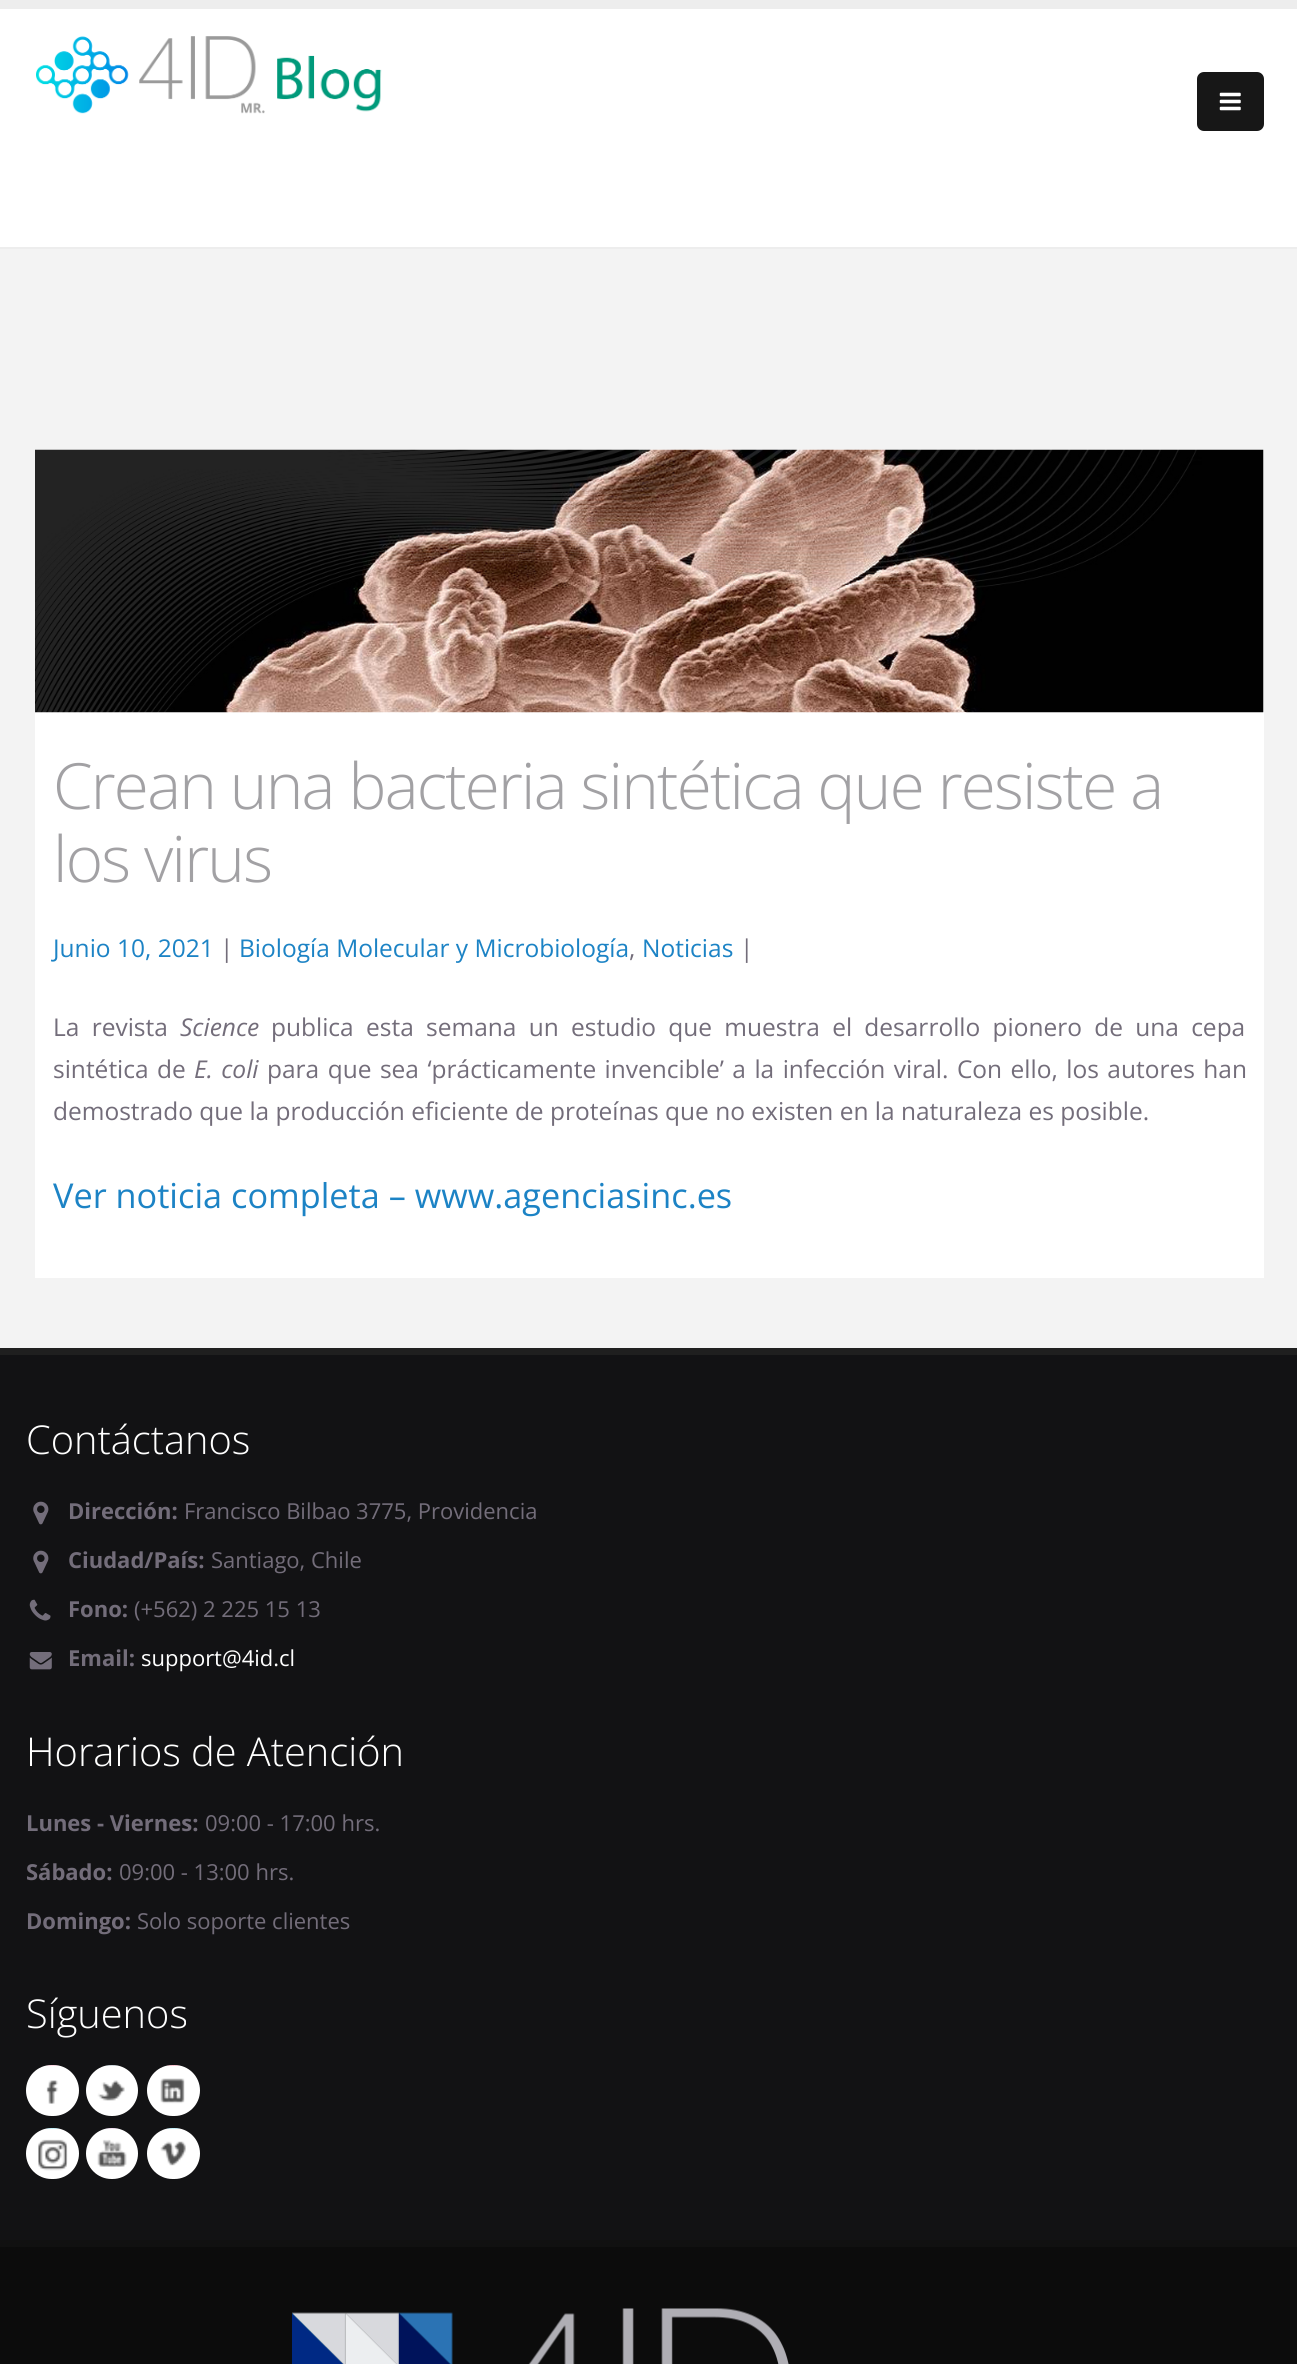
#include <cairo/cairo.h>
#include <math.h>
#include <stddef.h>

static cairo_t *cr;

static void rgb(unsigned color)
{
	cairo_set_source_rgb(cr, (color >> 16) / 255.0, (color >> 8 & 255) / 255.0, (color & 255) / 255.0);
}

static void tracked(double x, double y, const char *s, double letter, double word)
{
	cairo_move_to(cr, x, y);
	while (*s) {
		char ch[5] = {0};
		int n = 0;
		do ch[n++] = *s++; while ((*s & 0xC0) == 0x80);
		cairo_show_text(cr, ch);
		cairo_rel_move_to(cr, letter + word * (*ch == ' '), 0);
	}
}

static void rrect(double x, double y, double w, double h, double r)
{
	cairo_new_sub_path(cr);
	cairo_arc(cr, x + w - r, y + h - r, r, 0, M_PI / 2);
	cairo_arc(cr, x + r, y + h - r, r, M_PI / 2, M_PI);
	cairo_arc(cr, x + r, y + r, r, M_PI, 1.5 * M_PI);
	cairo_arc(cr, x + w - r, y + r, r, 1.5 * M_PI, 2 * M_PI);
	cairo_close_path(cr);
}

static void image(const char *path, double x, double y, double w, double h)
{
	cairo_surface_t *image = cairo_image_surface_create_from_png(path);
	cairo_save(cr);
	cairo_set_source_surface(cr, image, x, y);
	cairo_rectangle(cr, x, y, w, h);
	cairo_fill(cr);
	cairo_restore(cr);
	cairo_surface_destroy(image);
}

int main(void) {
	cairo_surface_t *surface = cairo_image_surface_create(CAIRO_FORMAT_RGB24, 1297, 2364);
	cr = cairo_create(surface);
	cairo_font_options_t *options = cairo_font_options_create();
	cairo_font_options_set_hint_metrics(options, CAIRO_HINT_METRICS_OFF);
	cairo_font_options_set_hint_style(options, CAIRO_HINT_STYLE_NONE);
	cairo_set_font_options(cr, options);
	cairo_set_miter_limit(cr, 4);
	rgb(0xffffff);
	cairo_paint(cr);
	rgb(0xededed);
	cairo_rectangle(cr, 0, 0, 1297, 9);
	cairo_fill(cr);
	cairo_rectangle(cr, 0, 247, 1297, 2);
	cairo_fill(cr);
	image("img/1.png", 36, 36, 346, 78);
	rgb(0x171717);
	rrect(1197, 72, 67, 59, 7);
	cairo_fill(cr);
	image("img/2.png", 1219, 92, 22, 19);
	rgb(0xf3f3f3);
	cairo_rectangle(cr, 0, 249, 1297, 1099);
	cairo_fill(cr);
	rgb(0xffffff);
	cairo_rectangle(cr, 35, 712, 1229, 566);
	cairo_fill(cr);
	image("img/3.png", 35, 449, 1229, 264);
	rgb(0x121214);
	cairo_rectangle(cr, 0, 1355, 1297, 885);
	cairo_fill(cr);
	rgb(0x1f1f1f);
	cairo_rectangle(cr, 0, 1348, 1297, 7);
	cairo_fill(cr);
	image("img/4.png", 33, 1501, 16, 24);
	image("img/4.png", 33, 1550, 16, 24);
	image("img/5.png", 29, 1599, 22, 22);
	image("img/6.png", 29, 1652, 23, 18);
	rgb(0xffffff);
	rrect(26, 2065, 53, 51, 25.5);
	cairo_fill(cr);
	image("img/7.png", 46, 2065, 13, 39);
	rrect(86, 2065, 52, 51, 25.5);
	cairo_fill(cr);
	image("img/8.png", 97, 2065, 28, 36);
	rrect(147, 2065, 53, 51, 25.5);
	cairo_fill(cr);
	image("img/9.png", 160, 2065, 25, 39);
	rrect(26, 2128, 53, 51, 25.5);
	cairo_fill(cr);
	image("img/10.png", 38, 2128, 30, 43);
	rrect(86, 2128, 52, 51, 25.5);
	cairo_fill(cr);
	image("img/11.png", 97, 2128, 30, 39);
	rrect(147, 2128, 53, 51, 25.5);
	cairo_fill(cr);
	image("img/12.png", 160, 2128, 26, 38);
	rgb(0x0c0c0c);
	cairo_rectangle(cr, 0, 2247, 1297, 117);
	cairo_fill(cr);
	rgb(0x111111);
	cairo_rectangle(cr, 0, 2240, 1297, 7);
	cairo_fill(cr);
	image("img/13.png", 292, 2308, 497, 56);
	cairo_select_font_face(cr, "Open Sans Light", CAIRO_FONT_SLANT_NORMAL, CAIRO_FONT_WEIGHT_NORMAL);
	cairo_set_font_size(cr, 63.75);
	rgb(0xa2a1a4);
	tracked(53, 809, "Crean una bacteria sintética que resiste a", -1.75, 0);
	tracked(53, 882, "los virus", -1.75, 0);
	cairo_select_font_face(cr, "Open Sans", CAIRO_FONT_SLANT_NORMAL, CAIRO_FONT_WEIGHT_NORMAL);
	cairo_set_font_size(cr, 24.5);
	rgb(0x1c83c5);
	cairo_move_to(cr, 53, 957);
	cairo_show_text(cr, "Junio 10, 2021");
	rgb(0x736d7a);
	cairo_move_to(cr, 220, 957);
	cairo_show_text(cr, "|");
	rgb(0x1c83c5);
	cairo_move_to(cr, 239, 957);
	cairo_show_text(cr, "Biología Molecular y Microbiología");
	rgb(0x736d7a);
	cairo_move_to(cr, 629, 957);
	cairo_show_text(cr, ",");
	rgb(0x1c83c5);
	cairo_move_to(cr, 642, 957);
	cairo_show_text(cr, "Noticias");
	rgb(0x736d7a);
	cairo_move_to(cr, 740, 957);
	cairo_show_text(cr, "|");
	tracked(53, 1036, "La revista", 0, 5.9);
	cairo_select_font_face(cr, "Open Sans", CAIRO_FONT_SLANT_ITALIC, CAIRO_FONT_WEIGHT_NORMAL);
	cairo_move_to(cr, 180, 1036);
	cairo_show_text(cr, "Science");
	cairo_select_font_face(cr, "Open Sans", CAIRO_FONT_SLANT_NORMAL, CAIRO_FONT_WEIGHT_NORMAL);
	tracked(271, 1036, "publica esta semana un estudio que muestra el desarrollo pionero de una cepa", 0, 5.9);
	tracked(53, 1078, "sintética de", 0, 2.1);
	cairo_select_font_face(cr, "Open Sans", CAIRO_FONT_SLANT_ITALIC, CAIRO_FONT_WEIGHT_NORMAL);
	tracked(194, 1078, "E. coli", 0, 2.1);
	cairo_select_font_face(cr, "Open Sans", CAIRO_FONT_SLANT_NORMAL, CAIRO_FONT_WEIGHT_NORMAL);
	tracked(267, 1078, "para que sea ‘prácticamente invencible’ a la infección viral. Con ello, los autores han", 0, 2.1);
	cairo_move_to(cr, 53, 1120);
	cairo_show_text(cr, "demostrado que la producción eficiente de proteínas que no existen en la naturaleza es posible.");
	cairo_set_font_size(cr, 34.25);
	rgb(0x1c83c5);
	cairo_move_to(cr, 53, 1208);
	cairo_show_text(cr, "Ver noticia completa – www.agenciasinc.es");
	cairo_select_font_face(cr, "Open Sans Light", CAIRO_FONT_SLANT_NORMAL, CAIRO_FONT_WEIGHT_NORMAL);
	cairo_set_font_size(cr, 39.75);
	rgb(0xffffff);
	cairo_move_to(cr, 26, 1454);
	cairo_show_text(cr, "Contáctanos");
	cairo_select_font_face(cr, "Open Sans", CAIRO_FONT_SLANT_NORMAL, CAIRO_FONT_WEIGHT_BOLD);
	cairo_set_font_size(cr, 22);
	rgb(0x736d7a);
	cairo_move_to(cr, 68, 1519);
	cairo_show_text(cr, "Dirección:");
	cairo_select_font_face(cr, "Open Sans", CAIRO_FONT_SLANT_NORMAL, CAIRO_FONT_WEIGHT_NORMAL);
	cairo_move_to(cr, 184, 1519);
	cairo_show_text(cr, "Francisco Bilbao 3775, Providencia");
	cairo_select_font_face(cr, "Open Sans", CAIRO_FONT_SLANT_NORMAL, CAIRO_FONT_WEIGHT_BOLD);
	cairo_move_to(cr, 68, 1568);
	cairo_show_text(cr, "Ciudad/País:");
	cairo_select_font_face(cr, "Open Sans", CAIRO_FONT_SLANT_NORMAL, CAIRO_FONT_WEIGHT_NORMAL);
	cairo_move_to(cr, 211, 1568);
	cairo_show_text(cr, "Santiago, Chile");
	cairo_select_font_face(cr, "Open Sans", CAIRO_FONT_SLANT_NORMAL, CAIRO_FONT_WEIGHT_BOLD);
	cairo_move_to(cr, 68, 1617);
	cairo_show_text(cr, "Fono:");
	cairo_select_font_face(cr, "Open Sans", CAIRO_FONT_SLANT_NORMAL, CAIRO_FONT_WEIGHT_NORMAL);
	cairo_move_to(cr, 134, 1617);
	cairo_show_text(cr, "(+562) 2 225 15 13");
	cairo_select_font_face(cr, "Open Sans", CAIRO_FONT_SLANT_NORMAL, CAIRO_FONT_WEIGHT_BOLD);
	cairo_move_to(cr, 68, 1666);
	cairo_show_text(cr, "Email:");
	cairo_select_font_face(cr, "Open Sans", CAIRO_FONT_SLANT_NORMAL, CAIRO_FONT_WEIGHT_NORMAL);
	rgb(0xffffff);
	cairo_move_to(cr, 141, 1666);
	cairo_show_text(cr, "support@4id.cl");
	cairo_select_font_face(cr, "Open Sans Light", CAIRO_FONT_SLANT_NORMAL, CAIRO_FONT_WEIGHT_NORMAL);
	cairo_set_font_size(cr, 39.75);
	cairo_move_to(cr, 26, 1766);
	cairo_show_text(cr, "Horarios de Atención");
	cairo_select_font_face(cr, "Open Sans", CAIRO_FONT_SLANT_NORMAL, CAIRO_FONT_WEIGHT_BOLD);
	cairo_set_font_size(cr, 22);
	rgb(0x736d7a);
	cairo_move_to(cr, 26, 1831);
	cairo_show_text(cr, "Lunes - Viernes:");
	cairo_select_font_face(cr, "Open Sans", CAIRO_FONT_SLANT_NORMAL, CAIRO_FONT_WEIGHT_NORMAL);
	cairo_move_to(cr, 205, 1831);
	cairo_show_text(cr, "09:00 - 17:00 hrs.");
	cairo_select_font_face(cr, "Open Sans", CAIRO_FONT_SLANT_NORMAL, CAIRO_FONT_WEIGHT_BOLD);
	cairo_move_to(cr, 26, 1880);
	cairo_show_text(cr, "Sábado:");
	cairo_select_font_face(cr, "Open Sans", CAIRO_FONT_SLANT_NORMAL, CAIRO_FONT_WEIGHT_NORMAL);
	cairo_move_to(cr, 119, 1880);
	cairo_show_text(cr, "09:00 - 13:00 hrs.");
	cairo_select_font_face(cr, "Open Sans", CAIRO_FONT_SLANT_NORMAL, CAIRO_FONT_WEIGHT_BOLD);
	cairo_move_to(cr, 26, 1929);
	cairo_show_text(cr, "Domingo:");
	cairo_select_font_face(cr, "Open Sans", CAIRO_FONT_SLANT_NORMAL, CAIRO_FONT_WEIGHT_NORMAL);
	cairo_move_to(cr, 137, 1929);
	cairo_show_text(cr, "Solo soporte clientes");
	cairo_select_font_face(cr, "Open Sans Light", CAIRO_FONT_SLANT_NORMAL, CAIRO_FONT_WEIGHT_NORMAL);
	cairo_set_font_size(cr, 39.75);
	rgb(0xffffff);
	cairo_move_to(cr, 26, 2028);
	cairo_show_text(cr, "Síguenos");
	cairo_surface_write_to_png(surface, "page.png");
	cairo_font_options_destroy(options);
	cairo_destroy(cr);
	cairo_surface_destroy(surface);
	return 0;
}
